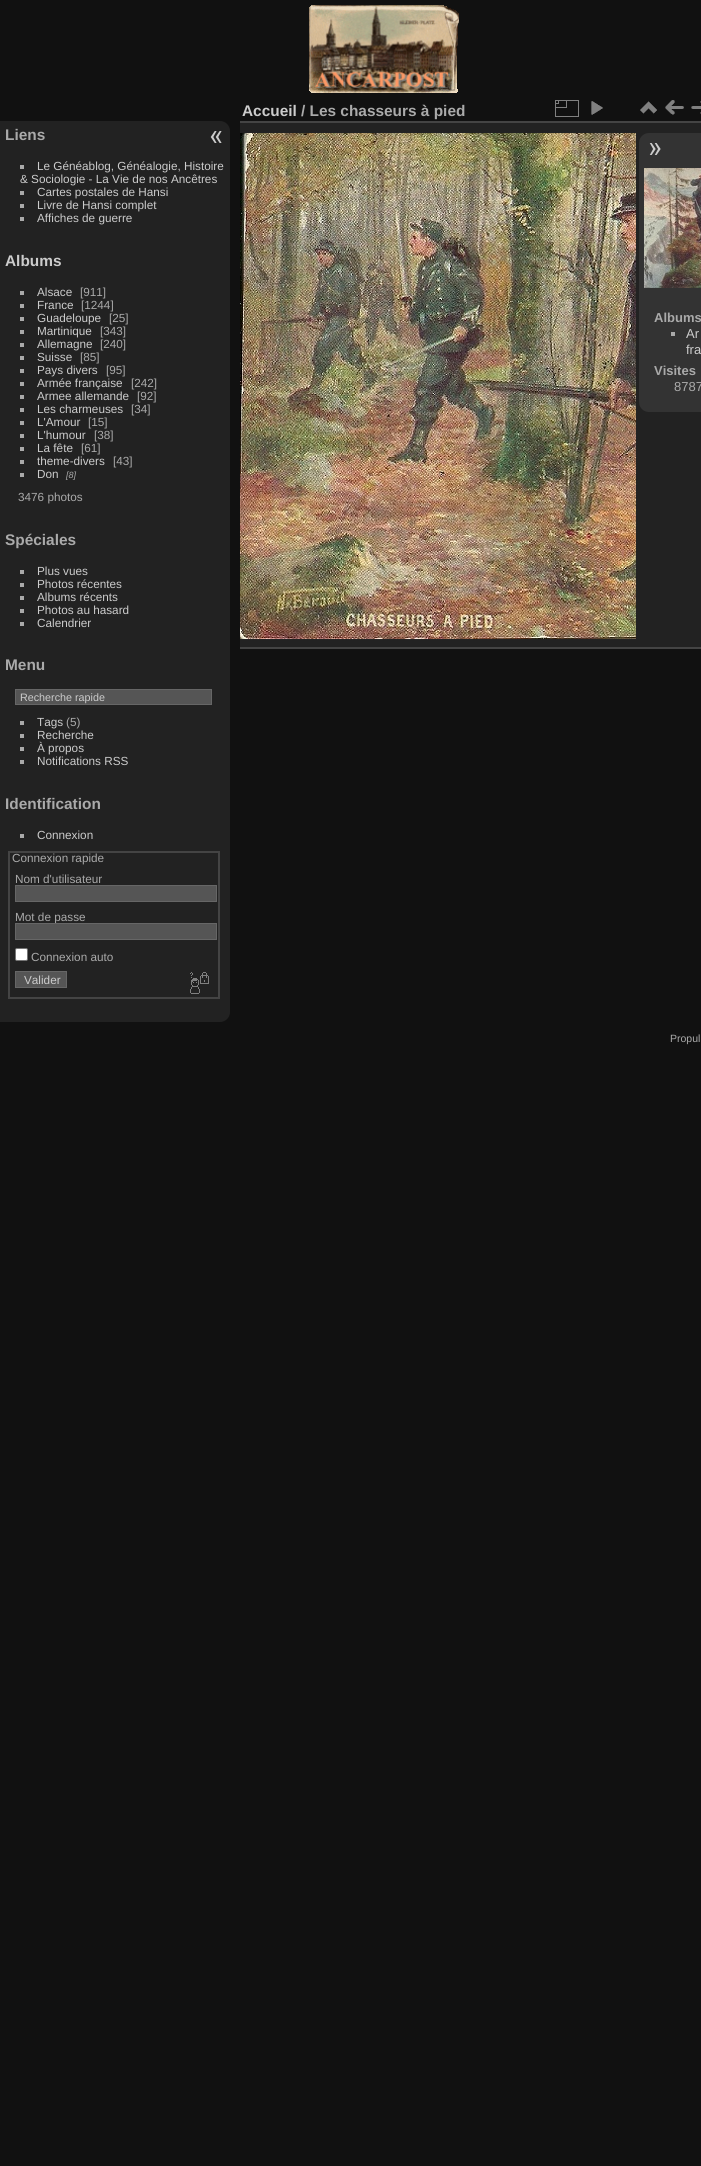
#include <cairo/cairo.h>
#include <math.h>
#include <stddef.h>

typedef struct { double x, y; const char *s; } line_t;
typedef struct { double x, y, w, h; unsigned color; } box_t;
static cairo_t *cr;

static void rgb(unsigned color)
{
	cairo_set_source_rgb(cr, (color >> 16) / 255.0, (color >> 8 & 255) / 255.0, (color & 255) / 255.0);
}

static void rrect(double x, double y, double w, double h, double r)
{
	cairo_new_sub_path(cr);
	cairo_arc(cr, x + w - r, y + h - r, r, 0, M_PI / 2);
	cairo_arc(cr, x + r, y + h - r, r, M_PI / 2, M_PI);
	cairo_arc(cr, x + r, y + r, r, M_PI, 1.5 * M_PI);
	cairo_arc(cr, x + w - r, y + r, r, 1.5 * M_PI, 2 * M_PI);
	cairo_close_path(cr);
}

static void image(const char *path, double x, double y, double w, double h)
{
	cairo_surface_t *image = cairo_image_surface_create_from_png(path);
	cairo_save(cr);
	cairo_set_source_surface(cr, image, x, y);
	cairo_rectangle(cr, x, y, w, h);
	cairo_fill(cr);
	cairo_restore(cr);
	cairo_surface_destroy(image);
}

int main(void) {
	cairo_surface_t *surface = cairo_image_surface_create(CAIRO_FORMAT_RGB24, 701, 2166);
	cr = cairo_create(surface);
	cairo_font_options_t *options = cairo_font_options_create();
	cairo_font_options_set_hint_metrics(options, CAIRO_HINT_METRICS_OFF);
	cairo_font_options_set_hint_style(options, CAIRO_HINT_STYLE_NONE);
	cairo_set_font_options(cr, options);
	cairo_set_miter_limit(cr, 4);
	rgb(0x111111);
	cairo_paint(cr);
	image("img/1.png", 309, 5, 150, 88);
	rgb(0x222222);
	cairo_new_path(cr);
	cairo_move_to(cr, 0, 121);
	cairo_line_to(cr, 220, 121);
	cairo_curve_to(cr, 225.5, 121, 230, 125.5, 230, 131);
	cairo_line_to(cr, 230, 1012);
	cairo_curve_to(cr, 230, 1017.5, 225.5, 1022, 220, 1022);
	cairo_line_to(cr, 0, 1022);
	cairo_close_path(cr);
	cairo_fill(cr);
	{
		static const box_t items[] = {
			{20, 165, 4, 4, 0xaaaaaa},
			{20, 191, 4, 4, 0xaaaaaa},
			{20, 204, 4, 4, 0xaaaaaa},
			{20, 217, 4, 4, 0xaaaaaa},
			{20, 291, 4, 4, 0xaaaaaa},
			{20, 304, 4, 4, 0xaaaaaa},
			{20, 317, 4, 4, 0xaaaaaa},
			{20, 330, 4, 4, 0xaaaaaa},
			{20, 343, 4, 4, 0xaaaaaa},
			{20, 356, 4, 4, 0xaaaaaa},
			{20, 369, 4, 4, 0xaaaaaa},
			{20, 382, 4, 4, 0xaaaaaa},
			{20, 395, 4, 4, 0xaaaaaa},
			{20, 408, 4, 4, 0xaaaaaa},
			{20, 421, 4, 4, 0xaaaaaa},
			{20, 434, 4, 4, 0xaaaaaa},
			{20, 447, 4, 4, 0xaaaaaa},
			{20, 460, 4, 4, 0xaaaaaa},
			{20, 473, 4, 4, 0xaaaaaa},
			{20, 570, 4, 4, 0xaaaaaa},
			{20, 583, 4, 4, 0xaaaaaa},
			{20, 596, 4, 4, 0xaaaaaa},
			{20, 609, 4, 4, 0xaaaaaa},
			{20, 622, 4, 4, 0xaaaaaa},
		};
		for (size_t i = 0; i < sizeof items / sizeof *items; i++) {
			rgb(items[i].color);
			cairo_rectangle(cr, items[i].x, items[i].y, items[i].w, items[i].h);
			cairo_fill(cr);
		}
	}
	rgb(0x555555);
	cairo_rectangle(cr, 15.5, 689.5, 196, 15);
	cairo_fill_preserve(cr);
	rgb(0x666666);
	cairo_set_line_width(cr, 1);
	cairo_stroke(cr);
	{
		static const box_t items[] = {
			{20, 721, 4, 4, 0xaaaaaa},
			{20, 734, 4, 4, 0xaaaaaa},
			{20, 747, 4, 4, 0xaaaaaa},
			{20, 760, 4, 4, 0xaaaaaa},
			{20, 834, 4, 4, 0xaaaaaa},
		};
		for (size_t i = 0; i < sizeof items / sizeof *items; i++) {
			rgb(items[i].color);
			cairo_rectangle(cr, items[i].x, items[i].y, items[i].w, items[i].h);
			cairo_fill(cr);
		}
	}
	cairo_rectangle(cr, 9, 852, 210, 146);
	rgb(0x444444);
	cairo_set_line_width(cr, 2);
	cairo_stroke(cr);
	rgb(0x555555);
	cairo_rectangle(cr, 15.5, 885.5, 201, 16);
	cairo_fill_preserve(cr);
	rgb(0x666666);
	cairo_set_line_width(cr, 1);
	cairo_stroke(cr);
	rgb(0xffffff);
	rrect(15.5, 948.5, 12, 12, 1.5);
	cairo_fill_preserve(cr);
	rgb(0x767676);
	cairo_stroke(cr);
	rgb(0x555555);
	cairo_rectangle(cr, 15.5, 971.5, 51, 16);
	cairo_fill_preserve(cr);
	rgb(0x666666);
	cairo_stroke(cr);
	image("img/2.png", 190, 972, 19, 22);
	{
		static const box_t items[] = {
			{240, 123, 461, 524, 0x222222},
			{240, 647, 461, 2, 0x444444},
			{240, 121, 461, 2, 0x444444},
		};
		for (size_t i = 0; i < sizeof items / sizeof *items; i++) {
			rgb(items[i].color);
			cairo_rectangle(cr, items[i].x, items[i].y, items[i].w, items[i].h);
			cairo_fill(cr);
		}
	}
	image("img/3.png", 555, 100, 24, 17);
	image("img/4.png", 591, 101, 12, 14);
	image("img/5.png", 640, 101, 17, 13);
	image("img/6.png", 665, 100, 19, 15);
	image("img/7.png", 691, 101, 10, 13);
	image("img/8.png", 240, 133, 396, 506);
	rgb(0x333333);
	cairo_new_path(cr);
	cairo_move_to(cr, 649, 133);
	cairo_line_to(cr, 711, 133);
	cairo_line_to(cr, 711, 412);
	cairo_line_to(cr, 649, 412);
	cairo_curve_to(cr, 643.5, 412, 639, 407.5, 639, 402);
	cairo_line_to(cr, 639, 143);
	cairo_curve_to(cr, 639, 137.5, 643.5, 133, 649, 133);
	cairo_close_path(cr);
	cairo_fill(cr);
	image("img/9.png", 649, 143, 12, 12);
	image("img/10.png", 644, 168, 57, 120);
	rgb(0xaaaaaa);
	cairo_rectangle(cr, 671, 332, 4, 4);
	cairo_fill(cr);
	image("img/11.png", 210, 131, 12, 12);
	cairo_select_font_face(cr, "Liberation Sans", CAIRO_FONT_SLANT_NORMAL, CAIRO_FONT_WEIGHT_BOLD);
	cairo_set_font_size(cr, 15.4);
	cairo_move_to(cr, 5, 140);
	cairo_show_text(cr, "Liens");
	cairo_select_font_face(cr, "Liberation Sans", CAIRO_FONT_SLANT_NORMAL, CAIRO_FONT_WEIGHT_NORMAL);
	cairo_set_font_size(cr, 11.75);
	rgb(0xcccccc);
	{
		static const line_t items[] = {
			{37, 170, "Le Généablog, Généalogie, Histoire"},
			{20, 183, "& Sociologie - La Vie de nos Ancêtres"},
			{37, 196, "Cartes postales de Hansi"},
			{37, 209, "Livre de Hansi complet"},
			{37, 222, "Affiches de guerre"},
		};
		for (size_t i = 0; i < sizeof items / sizeof *items; i++) {
			cairo_move_to(cr, items[i].x, items[i].y);
			cairo_show_text(cr, items[i].s);
		}
	}
	cairo_select_font_face(cr, "Liberation Sans", CAIRO_FONT_SLANT_NORMAL, CAIRO_FONT_WEIGHT_BOLD);
	cairo_set_font_size(cr, 15.4);
	cairo_move_to(cr, 5, 266);
	cairo_show_text(cr, "Albums");
	cairo_select_font_face(cr, "Liberation Sans", CAIRO_FONT_SLANT_NORMAL, CAIRO_FONT_WEIGHT_NORMAL);
	cairo_set_font_size(cr, 11.75);
	cairo_move_to(cr, 37, 296);
	cairo_show_text(cr, "Alsace");
	rgb(0xaaaaaa);
	cairo_move_to(cr, 80, 296);
	cairo_show_text(cr, "[911]");
	rgb(0xcccccc);
	cairo_move_to(cr, 37, 309);
	cairo_show_text(cr, "France");
	rgb(0xaaaaaa);
	cairo_move_to(cr, 81, 309);
	cairo_show_text(cr, "[1244]");
	rgb(0xcccccc);
	cairo_move_to(cr, 37, 322);
	cairo_show_text(cr, "Guadeloupe");
	rgb(0xaaaaaa);
	cairo_move_to(cr, 109, 322);
	cairo_show_text(cr, "[25]");
	rgb(0xcccccc);
	cairo_move_to(cr, 37, 335);
	cairo_show_text(cr, "Martinique");
	rgb(0xaaaaaa);
	cairo_move_to(cr, 100, 335);
	cairo_show_text(cr, "[343]");
	rgb(0xcccccc);
	cairo_move_to(cr, 37, 348);
	cairo_show_text(cr, "Allemagne");
	rgb(0xaaaaaa);
	cairo_move_to(cr, 100, 348);
	cairo_show_text(cr, "[240]");
	rgb(0xcccccc);
	cairo_move_to(cr, 37, 361);
	cairo_show_text(cr, "Suisse");
	rgb(0xaaaaaa);
	cairo_move_to(cr, 80, 361);
	cairo_show_text(cr, "[85]");
	rgb(0xcccccc);
	cairo_move_to(cr, 37, 374);
	cairo_show_text(cr, "Pays divers");
	rgb(0xaaaaaa);
	cairo_move_to(cr, 106, 374);
	cairo_show_text(cr, "[95]");
	rgb(0xcccccc);
	cairo_move_to(cr, 37, 387);
	cairo_show_text(cr, "Armée française");
	rgb(0xaaaaaa);
	cairo_move_to(cr, 131, 387);
	cairo_show_text(cr, "[242]");
	rgb(0xcccccc);
	cairo_move_to(cr, 37, 400);
	cairo_show_text(cr, "Armee allemande");
	rgb(0xaaaaaa);
	cairo_move_to(cr, 137, 400);
	cairo_show_text(cr, "[92]");
	rgb(0xcccccc);
	cairo_move_to(cr, 37, 413);
	cairo_show_text(cr, "Les charmeuses");
	rgb(0xaaaaaa);
	cairo_move_to(cr, 131, 413);
	cairo_show_text(cr, "[34]");
	rgb(0xcccccc);
	cairo_move_to(cr, 37, 426);
	cairo_show_text(cr, "L'Amour");
	rgb(0xaaaaaa);
	cairo_move_to(cr, 88, 426);
	cairo_show_text(cr, "[15]");
	rgb(0xcccccc);
	cairo_move_to(cr, 37, 439);
	cairo_show_text(cr, "L'humour");
	rgb(0xaaaaaa);
	cairo_move_to(cr, 94, 439);
	cairo_show_text(cr, "[38]");
	rgb(0xcccccc);
	cairo_move_to(cr, 37, 452);
	cairo_show_text(cr, "La fête");
	rgb(0xaaaaaa);
	cairo_move_to(cr, 81, 452);
	cairo_show_text(cr, "[61]");
	rgb(0xcccccc);
	cairo_move_to(cr, 37, 465);
	cairo_show_text(cr, "theme-divers");
	rgb(0xaaaaaa);
	cairo_move_to(cr, 113, 465);
	cairo_show_text(cr, "[43]");
	rgb(0xcccccc);
	cairo_move_to(cr, 37, 478);
	cairo_show_text(cr, "Don");
	cairo_select_font_face(cr, "Liberation Sans", CAIRO_FONT_SLANT_ITALIC, CAIRO_FONT_WEIGHT_NORMAL);
	cairo_set_font_size(cr, 9);
	rgb(0xaaaaaa);
	cairo_move_to(cr, 66, 478);
	cairo_show_text(cr, "[8]");
	cairo_select_font_face(cr, "Liberation Sans", CAIRO_FONT_SLANT_NORMAL, CAIRO_FONT_WEIGHT_NORMAL);
	cairo_set_font_size(cr, 11.75);
	cairo_move_to(cr, 18, 501);
	cairo_show_text(cr, "3476 photos");
	cairo_select_font_face(cr, "Liberation Sans", CAIRO_FONT_SLANT_NORMAL, CAIRO_FONT_WEIGHT_BOLD);
	cairo_set_font_size(cr, 15.4);
	cairo_move_to(cr, 5, 545);
	cairo_show_text(cr, "Spéciales");
	cairo_select_font_face(cr, "Liberation Sans", CAIRO_FONT_SLANT_NORMAL, CAIRO_FONT_WEIGHT_NORMAL);
	cairo_set_font_size(cr, 11.75);
	rgb(0xcccccc);
	{
		static const line_t items[] = {
			{37, 575, "Plus vues"},
			{37, 588, "Photos récentes"},
			{37, 601, "Albums récents"},
			{37, 614, "Photos au hasard"},
			{37, 627, "Calendrier"},
		};
		for (size_t i = 0; i < sizeof items / sizeof *items; i++) {
			cairo_move_to(cr, items[i].x, items[i].y);
			cairo_show_text(cr, items[i].s);
		}
	}
	cairo_select_font_face(cr, "Liberation Sans", CAIRO_FONT_SLANT_NORMAL, CAIRO_FONT_WEIGHT_BOLD);
	cairo_set_font_size(cr, 15.4);
	rgb(0xaaaaaa);
	cairo_move_to(cr, 5, 670);
	cairo_show_text(cr, "Menu");
	cairo_select_font_face(cr, "Liberation Sans", CAIRO_FONT_SLANT_NORMAL, CAIRO_FONT_WEIGHT_NORMAL);
	cairo_set_font_size(cr, 10.75);
	rgb(0xcccccc);
	cairo_move_to(cr, 20, 701);
	cairo_show_text(cr, "Recherche rapide");
	cairo_set_font_size(cr, 11.75);
	cairo_move_to(cr, 37, 726);
	cairo_show_text(cr, "Tags");
	rgb(0xaaaaaa);
	cairo_move_to(cr, 66, 726);
	cairo_show_text(cr, "(5)");
	rgb(0xcccccc);
	{
		static const line_t items[] = {
			{37, 739, "Recherche"},
			{37, 752, "À propos"},
			{37, 765, "Notifications RSS"},
		};
		for (size_t i = 0; i < sizeof items / sizeof *items; i++) {
			cairo_move_to(cr, items[i].x, items[i].y);
			cairo_show_text(cr, items[i].s);
		}
	}
	cairo_select_font_face(cr, "Liberation Sans", CAIRO_FONT_SLANT_NORMAL, CAIRO_FONT_WEIGHT_BOLD);
	cairo_set_font_size(cr, 15.4);
	rgb(0xaaaaaa);
	cairo_move_to(cr, 5, 809);
	cairo_show_text(cr, "Identification");
	cairo_select_font_face(cr, "Liberation Sans", CAIRO_FONT_SLANT_NORMAL, CAIRO_FONT_WEIGHT_NORMAL);
	cairo_set_font_size(cr, 11.75);
	rgb(0xcccccc);
	cairo_move_to(cr, 37, 839);
	cairo_show_text(cr, "Connexion");
	rgb(0xaaaaaa);
	{
		static const line_t items[] = {
			{12, 862, "Connexion rapide"},
			{15, 883, "Nom d'utilisateur"},
			{15, 921, "Mot de passe"},
		};
		for (size_t i = 0; i < sizeof items / sizeof *items; i++) {
			cairo_move_to(cr, items[i].x, items[i].y);
			cairo_show_text(cr, items[i].s);
		}
	}
	rgb(0x555555);
	cairo_rectangle(cr, 15.5, 923.5, 201, 16);
	cairo_fill_preserve(cr);
	rgb(0x666666);
	cairo_stroke(cr);
	rgb(0xaaaaaa);
	cairo_move_to(cr, 31, 961);
	cairo_show_text(cr, "Connexion auto");
	rgb(0xcccccc);
	cairo_move_to(cr, 24, 984);
	cairo_show_text(cr, "Valider");
	cairo_select_font_face(cr, "Liberation Sans", CAIRO_FONT_SLANT_NORMAL, CAIRO_FONT_WEIGHT_BOLD);
	cairo_set_font_size(cr, 15.4);
	cairo_move_to(cr, 242, 116);
	cairo_show_text(cr, "Accueil");
	rgb(0xaaaaaa);
	cairo_move_to(cr, 301, 116);
	cairo_show_text(cr, "/ Les chasseurs à pied");
	cairo_set_font_size(cr, 13);
	cairo_move_to(cr, 654, 322);
	cairo_show_text(cr, "Albums");
	cairo_select_font_face(cr, "Liberation Sans", CAIRO_FONT_SLANT_NORMAL, CAIRO_FONT_WEIGHT_NORMAL);
	rgb(0xcccccc);
	cairo_move_to(cr, 686, 338);
	cairo_show_text(cr, "Ar");
	cairo_move_to(cr, 686, 354);
	cairo_show_text(cr, "fra");
	cairo_select_font_face(cr, "Liberation Sans", CAIRO_FONT_SLANT_NORMAL, CAIRO_FONT_WEIGHT_BOLD);
	rgb(0xaaaaaa);
	cairo_move_to(cr, 654, 375);
	cairo_show_text(cr, "Visites");
	cairo_select_font_face(cr, "Liberation Sans", CAIRO_FONT_SLANT_NORMAL, CAIRO_FONT_WEIGHT_NORMAL);
	cairo_move_to(cr, 674, 391);
	cairo_show_text(cr, "8787");
	cairo_set_font_size(cr, 10.5);
	cairo_move_to(cr, 670, 1042);
	cairo_show_text(cr, "Propul");
	cairo_surface_write_to_png(surface, "page.png");
	cairo_font_options_destroy(options);
	cairo_destroy(cr);
	cairo_surface_destroy(surface);
	return 0;
}
